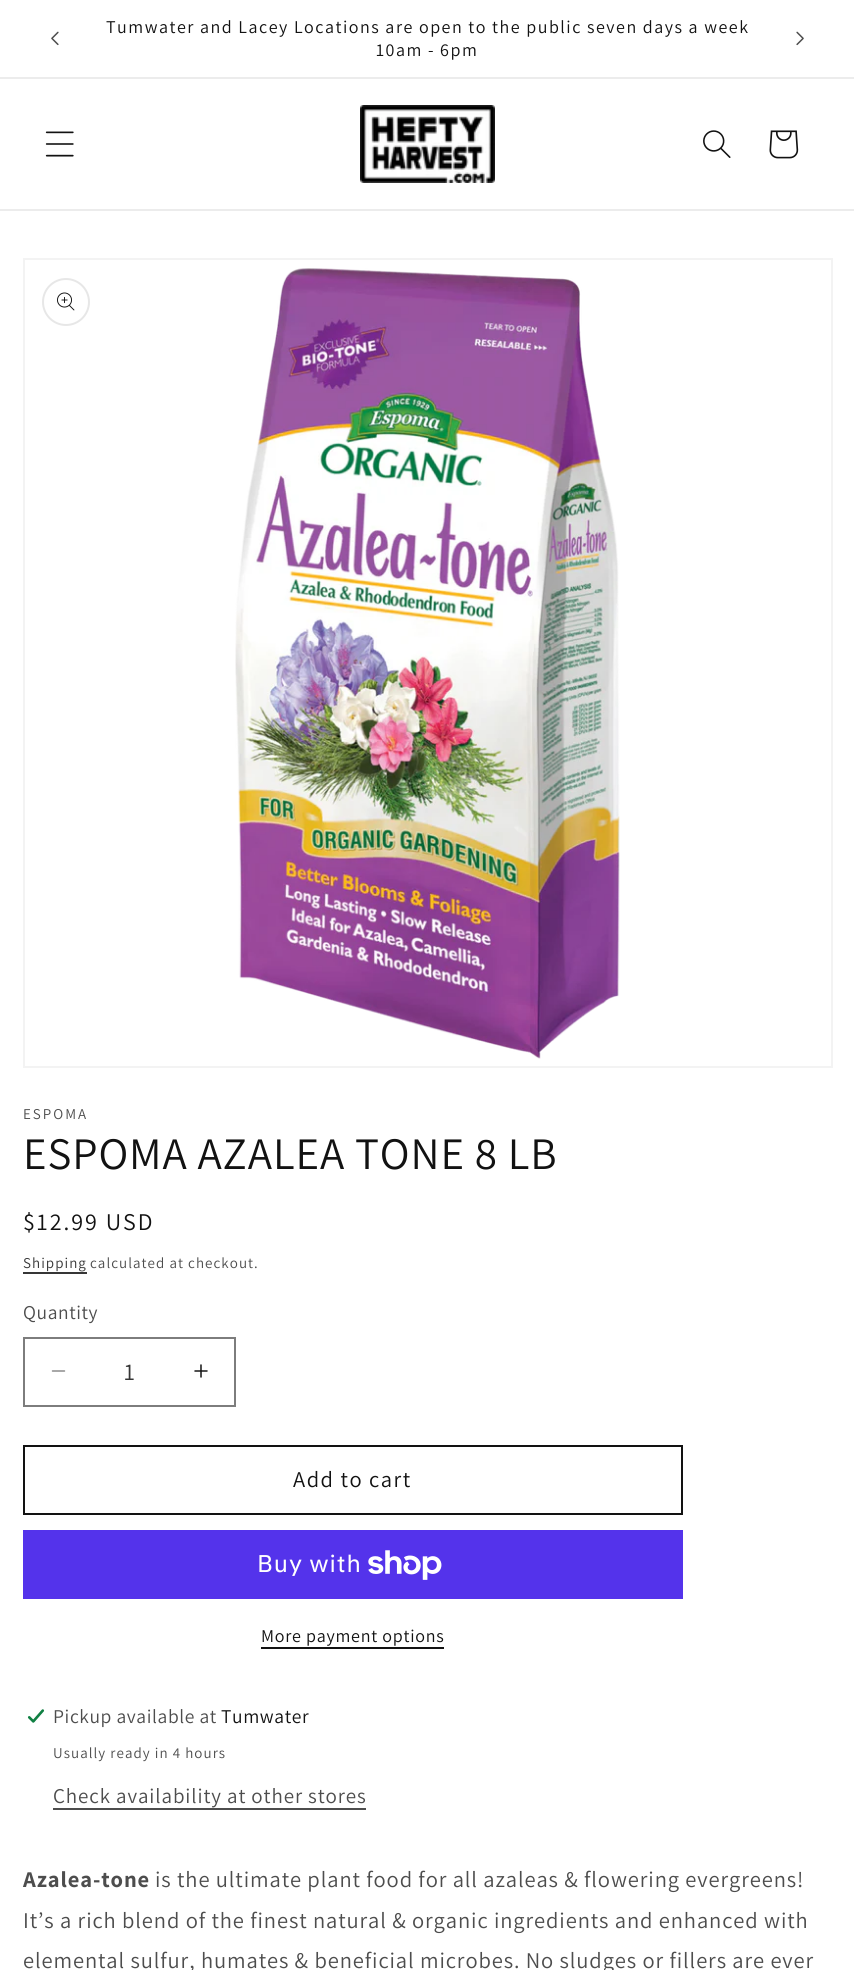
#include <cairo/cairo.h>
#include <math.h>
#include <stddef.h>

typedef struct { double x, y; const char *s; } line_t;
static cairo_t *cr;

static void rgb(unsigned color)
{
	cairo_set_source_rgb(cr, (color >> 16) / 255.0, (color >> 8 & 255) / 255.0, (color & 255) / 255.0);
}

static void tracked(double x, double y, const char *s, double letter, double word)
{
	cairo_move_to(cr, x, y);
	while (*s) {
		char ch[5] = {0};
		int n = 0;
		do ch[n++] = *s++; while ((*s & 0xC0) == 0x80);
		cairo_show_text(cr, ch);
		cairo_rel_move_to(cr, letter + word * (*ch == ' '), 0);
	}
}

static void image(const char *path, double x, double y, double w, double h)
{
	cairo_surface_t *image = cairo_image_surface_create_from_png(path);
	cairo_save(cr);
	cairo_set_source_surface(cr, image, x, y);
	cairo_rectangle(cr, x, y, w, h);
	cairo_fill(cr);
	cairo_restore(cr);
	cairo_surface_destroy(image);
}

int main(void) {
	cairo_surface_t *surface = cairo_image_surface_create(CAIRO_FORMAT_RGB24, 854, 1970);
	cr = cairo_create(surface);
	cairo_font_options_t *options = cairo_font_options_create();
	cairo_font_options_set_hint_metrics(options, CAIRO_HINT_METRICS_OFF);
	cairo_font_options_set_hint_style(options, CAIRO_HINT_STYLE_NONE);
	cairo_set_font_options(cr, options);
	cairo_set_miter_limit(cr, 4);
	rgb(0xffffff);
	cairo_paint(cr);
	rgb(0xececec);
	cairo_rectangle(cr, 0, 77, 854, 2);
	cairo_fill(cr);
	image("img/1.png", 51, 31, 8, 15);
	image("img/2.png", 796, 31, 8, 15);
	cairo_rectangle(cr, 0, 209, 854, 2);
	cairo_fill(cr);
	image("img/3.png", 45, 131, 29, 26);
	image("img/4.png", 360, 105, 135, 78);
	image("img/5.png", 703, 130, 28, 28);
	image("img/6.png", 769, 130, 30, 29);
	cairo_rectangle(cr, 24, 259, 808, 808);
	rgb(0xf3f3f3);
	cairo_stroke(cr);
	cairo_arc(cr, 66, 302, 23, 0, 2 * M_PI);
	rgb(0xe7e7e7);
	cairo_stroke(cr);
	image("img/7.png", 57, 292, 18, 19);
	image("img/8.png", 235, 268, 385, 791);
	rgb(0x363636);
	cairo_rectangle(cr, 23, 1272, 64, 2);
	cairo_fill(cr);
	image("img/9.png", 51, 1370, 15, 2);
	image("img/10.png", 194, 1364, 14, 14);
	cairo_rectangle(cr, 24, 1338, 211, 68);
	rgb(0x7d7d7d);
	cairo_stroke(cr);
	cairo_rectangle(cr, 24, 1446, 658, 68);
	rgb(0x121212);
	cairo_stroke(cr);
	rgb(0x5433eb);
	cairo_rectangle(cr, 23, 1530, 660, 69);
	cairo_fill(cr);
	image("img/11.png", 368, 1550, 74, 30);
	rgb(0x121212);
	cairo_rectangle(cr, 261, 1647, 183, 2);
	cairo_fill(cr);
	image("img/12.png", 27, 1709, 18, 14);
	rgb(0x4d4d4d);
	cairo_rectangle(cr, 53, 1808, 313, 2);
	cairo_fill(cr);
	cairo_select_font_face(cr, "Assistant", CAIRO_FONT_SLANT_NORMAL, CAIRO_FONT_WEIGHT_NORMAL);
	cairo_set_font_size(cr, 18);
	rgb(0x121212);
	tracked(106, 33, "Tumwater and Lacey Locations are open to the public seven days a week", 1.5, 0);
	tracked(376, 56, "10am - 6pm", 1.5, 0);
	cairo_set_font_size(cr, 15);
	rgb(0x4d4d4d);
	tracked(23, 1119, "ESPOMA", 2, 0);
	cairo_set_font_size(cr, 45);
	rgb(0x121212);
	tracked(23, 1169, "ESPOMA AZALEA TONE 8 LB", 0.9, 0);
	cairo_set_font_size(cr, 24);
	tracked(23, 1230, "$12.99 USD", 2, 0);
	cairo_set_font_size(cr, 15);
	rgb(0x363636);
	tracked(23, 1268, "Shipping", 1.05, 0);
	rgb(0x4d4d4d);
	tracked(90, 1268, "calculated at checkout.", 1.05, 0);
	cairo_set_font_size(cr, 19.5);
	tracked(23, 1319, "Quantity", 0.6, 0);
	cairo_set_font_size(cr, 24);
	rgb(0x363636);
	cairo_move_to(cr, 124, 1380);
	cairo_show_text(cr, "1");
	cairo_set_font_size(cr, 22.5);
	rgb(0x121212);
	tracked(293, 1487, "Add to cart", 1.5, 0);
	cairo_select_font_face(cr, "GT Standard", CAIRO_FONT_SLANT_NORMAL, CAIRO_FONT_WEIGHT_NORMAL);
	cairo_set_font_size(cr, 24);
	rgb(0xffffff);
	tracked(257, 1572, "Buy with", 0.9, 0);
	cairo_select_font_face(cr, "Assistant", CAIRO_FONT_SLANT_NORMAL, CAIRO_FONT_WEIGHT_NORMAL);
	cairo_set_font_size(cr, 18);
	rgb(0x121212);
	tracked(261, 1642, "More payment options", 0.75, 0);
	cairo_set_font_size(cr, 19.5);
	rgb(0x4d4d4d);
	tracked(53, 1723, "Pickup available at", 0.6, 0);
	rgb(0x121212);
	tracked(221, 1723, "Tumwater", 0.6, 0);
	cairo_set_font_size(cr, 15);
	rgb(0x4d4d4d);
	tracked(53, 1758, "Usually ready in 4 hours", 1.05, 0);
	cairo_set_font_size(cr, 21);
	tracked(53, 1803, "Check availability at other stores", 0.9, 0);
	cairo_select_font_face(cr, "Assistant", CAIRO_FONT_SLANT_NORMAL, CAIRO_FONT_WEIGHT_BOLD);
	cairo_set_font_size(cr, 22.5);
	tracked(23, 1887, "Azalea-tone", 0.9, 0);
	cairo_select_font_face(cr, "Assistant", CAIRO_FONT_SLANT_NORMAL, CAIRO_FONT_WEIGHT_NORMAL);
	{
		static const line_t items[] = {
			{155, 1887, "is the ultimate plant food for all azaleas & flowering evergreens!"},
			{23, 1928, "It’s a rich blend of the finest natural & organic ingredients and enhanced with"},
			{23, 1968, "elemental sulfur, humates & beneficial microbes. No sludges or fillers are ever"},
		};
		for (size_t i = 0; i < sizeof items / sizeof *items; i++) {
			tracked(items[i].x, items[i].y, items[i].s, 0.9, 0);
		}
	}
	cairo_surface_write_to_png(surface, "page.png");
	cairo_font_options_destroy(options);
	cairo_destroy(cr);
	cairo_surface_destroy(surface);
	return 0;
}
